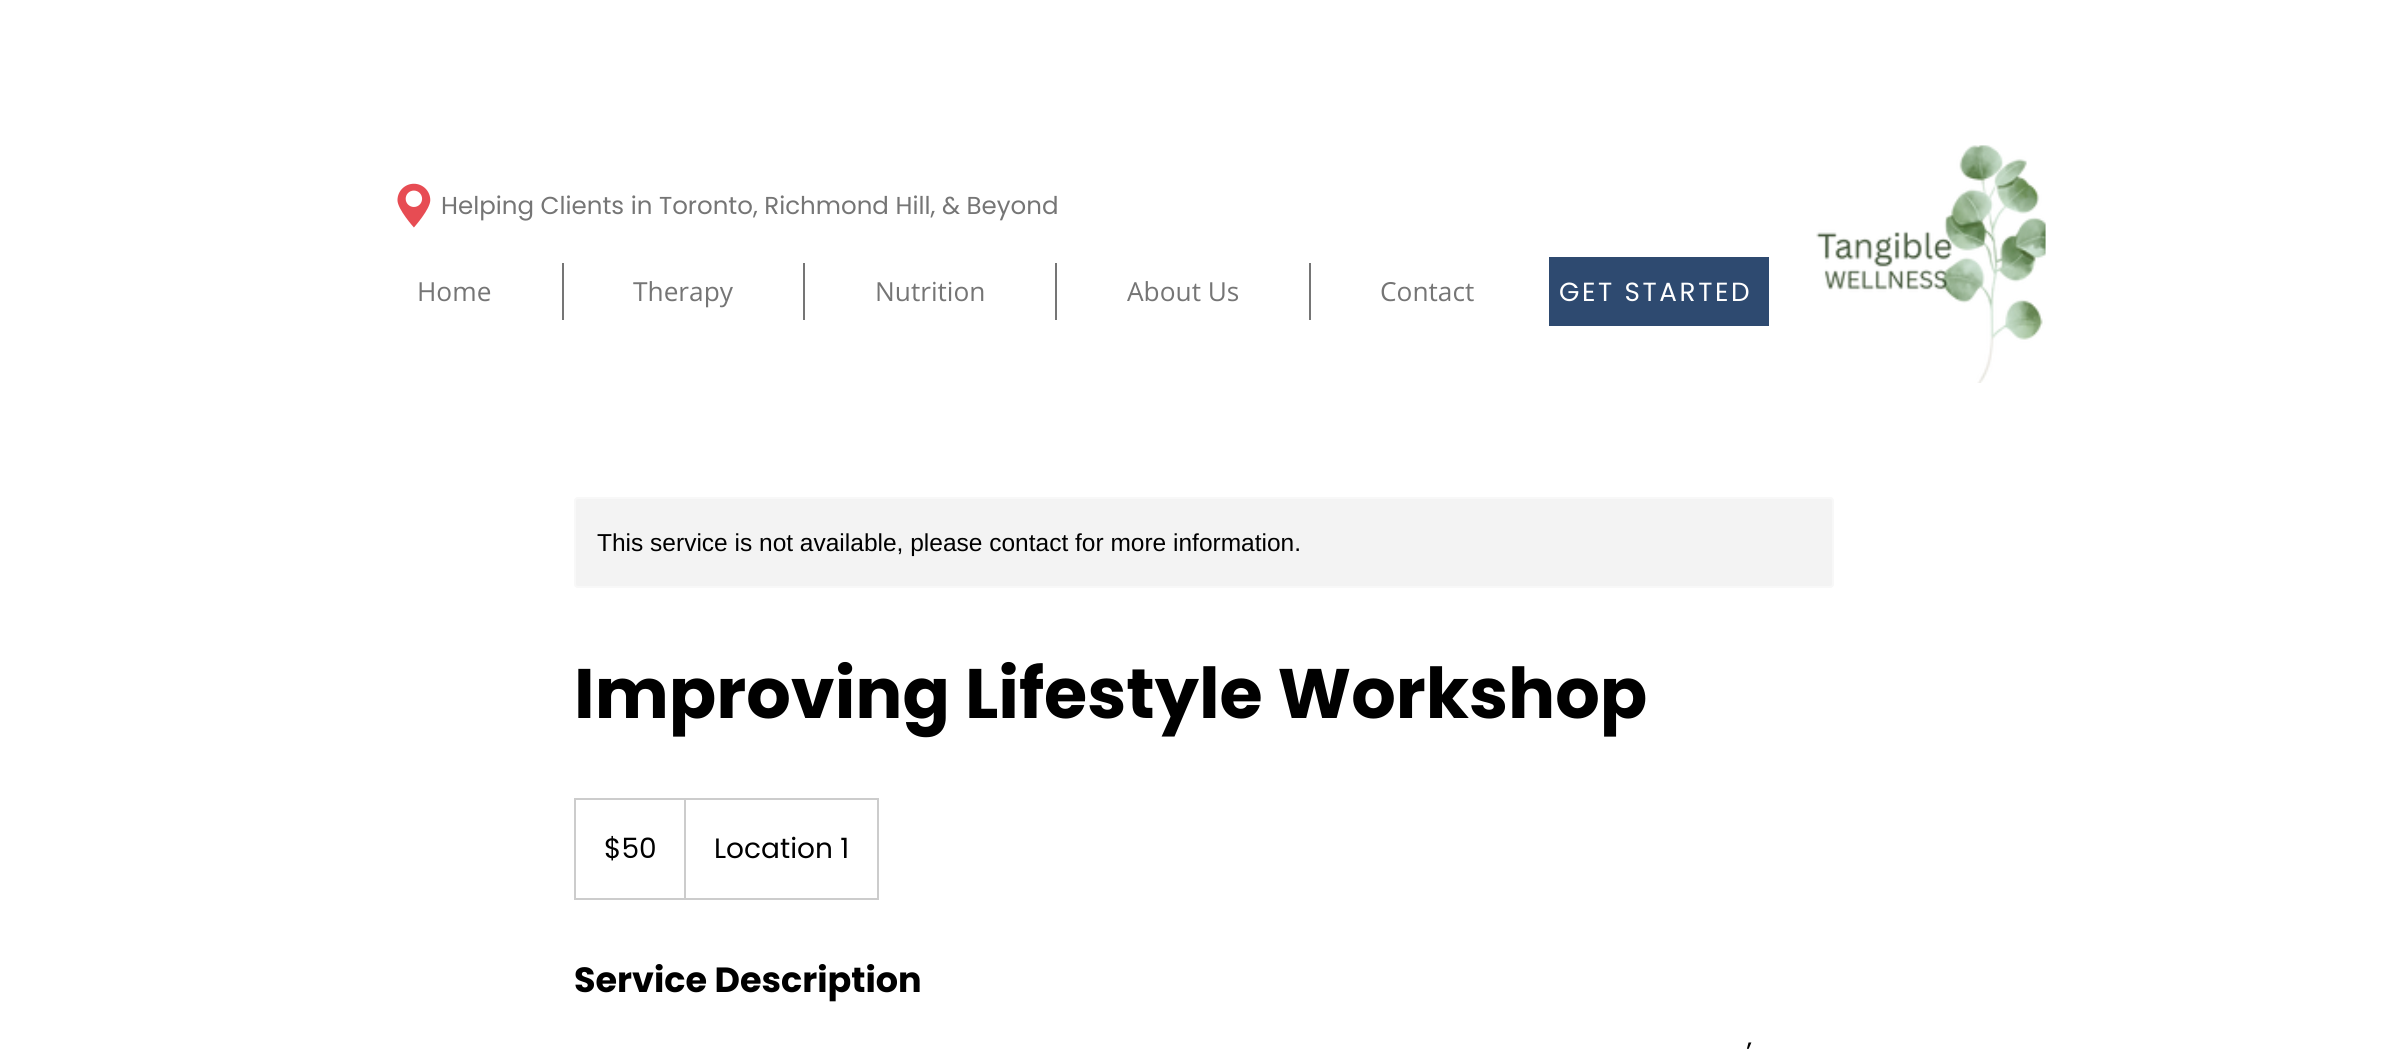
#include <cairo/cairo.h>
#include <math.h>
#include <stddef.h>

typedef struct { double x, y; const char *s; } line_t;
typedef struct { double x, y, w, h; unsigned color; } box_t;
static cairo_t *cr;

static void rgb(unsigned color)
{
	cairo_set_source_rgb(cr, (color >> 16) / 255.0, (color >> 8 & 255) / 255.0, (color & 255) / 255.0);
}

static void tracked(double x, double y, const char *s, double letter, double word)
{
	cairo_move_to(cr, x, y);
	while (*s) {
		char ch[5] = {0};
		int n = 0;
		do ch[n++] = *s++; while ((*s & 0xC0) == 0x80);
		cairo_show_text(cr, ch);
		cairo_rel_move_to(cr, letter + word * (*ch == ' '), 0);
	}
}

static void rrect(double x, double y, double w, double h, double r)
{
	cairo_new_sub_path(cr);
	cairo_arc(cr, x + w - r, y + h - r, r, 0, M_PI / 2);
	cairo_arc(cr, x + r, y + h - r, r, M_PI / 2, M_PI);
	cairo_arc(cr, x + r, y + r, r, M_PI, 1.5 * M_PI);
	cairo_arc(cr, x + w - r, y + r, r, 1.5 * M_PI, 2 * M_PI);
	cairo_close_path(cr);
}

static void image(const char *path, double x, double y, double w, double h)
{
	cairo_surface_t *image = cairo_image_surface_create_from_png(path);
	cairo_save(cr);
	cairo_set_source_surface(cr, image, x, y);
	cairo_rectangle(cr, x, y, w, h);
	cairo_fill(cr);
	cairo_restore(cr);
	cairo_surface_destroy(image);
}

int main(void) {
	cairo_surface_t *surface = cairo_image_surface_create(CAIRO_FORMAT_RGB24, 2407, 1049);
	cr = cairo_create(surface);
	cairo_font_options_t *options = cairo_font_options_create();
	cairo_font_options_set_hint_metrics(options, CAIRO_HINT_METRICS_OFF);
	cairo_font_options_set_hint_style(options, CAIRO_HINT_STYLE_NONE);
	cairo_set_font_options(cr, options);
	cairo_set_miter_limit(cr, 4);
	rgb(0xffffff);
	cairo_paint(cr);
	image("img/1.png", 397, 183, 34, 45);
	image("img/2.png", 1816, 145, 230, 238);
	{
		static const box_t items[] = {
			{562, 263, 2, 57, 0x757575},
			{803, 263, 2, 57, 0x757575},
			{1055, 263, 2, 57, 0x757575},
			{1309, 263, 2, 57, 0x757575},
			{1549, 257, 220, 69, 0x2e4a70},
		};
		for (size_t i = 0; i < sizeof items / sizeof *items; i++) {
			rgb(items[i].color);
			cairo_rectangle(cr, items[i].x, items[i].y, items[i].w, items[i].h);
			cairo_fill(cr);
		}
	}
	rgb(0xf3f3f3);
	rrect(574, 497, 1260, 91, 4);
	cairo_fill(cr);
	rrect(575, 498, 1258, 89, 3);
	cairo_set_source_rgba(cr, 1, 1, 1, 0.4);
	cairo_stroke(cr);
	cairo_rectangle(cr, 575, 799, 303, 100);
	rgb(0xcccccc);
	cairo_stroke(cr);
	cairo_save(cr);
	cairo_rectangle(cr, 576, 800, 301, 98);
	cairo_clip(cr);
	cairo_new_path(cr);
	cairo_move_to(cr, 684, 898);
	cairo_line_to(cr, 684, 798);
	cairo_line_to(cr, 686, 800);
	cairo_line_to(cr, 686, 898);
	cairo_close_path(cr);
	cairo_fill(cr);
	cairo_restore(cr);
	cairo_select_font_face(cr, "Poppins", CAIRO_FONT_SLANT_NORMAL, CAIRO_FONT_WEIGHT_NORMAL);
	cairo_set_font_size(cr, 24.5);
	rgb(0x757575);
	cairo_move_to(cr, 441, 214);
	cairo_show_text(cr, "Helping Clients in Toronto, Richmond Hill, & Beyond");
	cairo_select_font_face(cr, "Open Sans", CAIRO_FONT_SLANT_NORMAL, CAIRO_FONT_WEIGHT_NORMAL);
	cairo_set_font_size(cr, 26.25);
	{
		static const line_t items[] = {
			{417, 301, "Home"},
			{633, 301, "Therapy"},
			{875, 301, "Nutrition"},
			{1127, 301, "About Us"},
			{1380, 301, "Contact"},
		};
		for (size_t i = 0; i < sizeof items / sizeof *items; i++) {
			cairo_move_to(cr, items[i].x, items[i].y);
			cairo_show_text(cr, items[i].s);
		}
	}
	cairo_select_font_face(cr, "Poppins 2", CAIRO_FONT_SLANT_NORMAL, CAIRO_FONT_WEIGHT_NORMAL);
	rgb(0xffffff);
	tracked(1559, 301, "GET STARTED", 2.6, 0);
	cairo_select_font_face(cr, "Liberation Sans", CAIRO_FONT_SLANT_NORMAL, CAIRO_FONT_WEIGHT_NORMAL);
	cairo_set_font_size(cr, 24.5);
	rgb(0x000000);
	cairo_move_to(cr, 597, 551);
	cairo_show_text(cr, "This service is not available, please contact for more information.");
	cairo_select_font_face(cr, "Poppins", CAIRO_FONT_SLANT_NORMAL, CAIRO_FONT_WEIGHT_BOLD);
	cairo_set_font_size(cr, 70);
	cairo_move_to(cr, 574, 718);
	cairo_show_text(cr, "Improving Lifestyle Workshop");
	cairo_select_font_face(cr, "Poppins 2", CAIRO_FONT_SLANT_NORMAL, CAIRO_FONT_WEIGHT_NORMAL);
	cairo_set_font_size(cr, 28);
	cairo_move_to(cr, 604, 858);
	cairo_show_text(cr, "$50");
	cairo_move_to(cr, 714, 858);
	cairo_show_text(cr, "Location 1");
	cairo_select_font_face(cr, "Poppins", CAIRO_FONT_SLANT_NORMAL, CAIRO_FONT_WEIGHT_BOLD);
	cairo_set_font_size(cr, 35);
	cairo_move_to(cr, 574, 992);
	cairo_show_text(cr, "Service Description");
	cairo_select_font_face(cr, "Poppins 2", CAIRO_FONT_SLANT_NORMAL, CAIRO_FONT_WEIGHT_NORMAL);
	cairo_set_font_size(cr, 28);
	cairo_move_to(cr, 1746, 1062);
	cairo_show_text(cr, "’");
	cairo_surface_write_to_png(surface, "page.png");
	cairo_font_options_destroy(options);
	cairo_destroy(cr);
	cairo_surface_destroy(surface);
	return 0;
}
